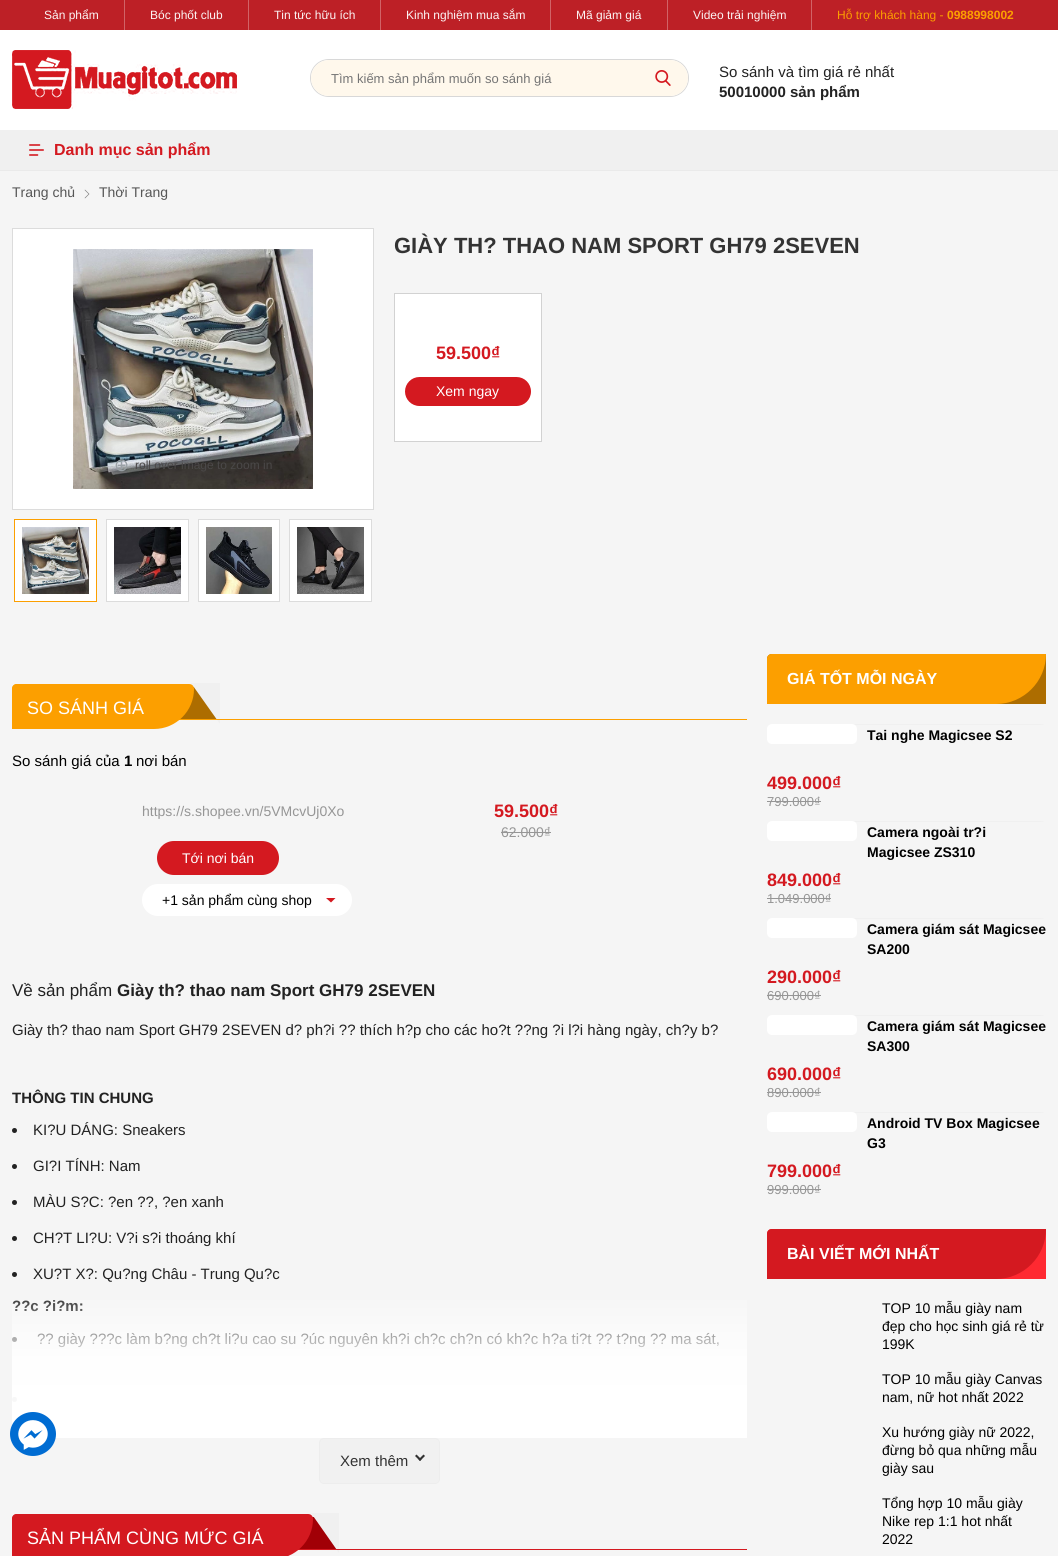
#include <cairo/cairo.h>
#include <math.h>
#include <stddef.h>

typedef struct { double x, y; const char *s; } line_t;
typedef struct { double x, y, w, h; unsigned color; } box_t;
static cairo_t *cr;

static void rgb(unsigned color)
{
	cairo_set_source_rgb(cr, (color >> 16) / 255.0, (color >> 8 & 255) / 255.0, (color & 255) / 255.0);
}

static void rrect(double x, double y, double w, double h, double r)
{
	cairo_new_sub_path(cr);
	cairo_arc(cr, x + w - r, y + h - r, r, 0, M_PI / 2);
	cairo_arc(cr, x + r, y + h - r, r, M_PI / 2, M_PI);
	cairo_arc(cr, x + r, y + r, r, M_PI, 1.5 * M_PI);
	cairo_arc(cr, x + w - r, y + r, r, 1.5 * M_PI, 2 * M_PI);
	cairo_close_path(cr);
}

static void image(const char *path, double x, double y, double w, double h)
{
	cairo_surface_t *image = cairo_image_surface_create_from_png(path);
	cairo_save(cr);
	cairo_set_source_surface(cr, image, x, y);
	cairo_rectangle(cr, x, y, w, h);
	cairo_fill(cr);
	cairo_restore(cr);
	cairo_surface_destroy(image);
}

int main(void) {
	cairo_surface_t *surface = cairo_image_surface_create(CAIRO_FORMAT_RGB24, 1058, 1556);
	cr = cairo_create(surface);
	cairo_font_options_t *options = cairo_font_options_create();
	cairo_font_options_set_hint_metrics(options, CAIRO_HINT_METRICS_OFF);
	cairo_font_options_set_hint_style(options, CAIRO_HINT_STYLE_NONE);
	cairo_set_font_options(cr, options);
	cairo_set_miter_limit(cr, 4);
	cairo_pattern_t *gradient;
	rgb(0xf5f5f5);
	cairo_paint(cr);
	{
		static const box_t items[] = {
			{0, 0, 1058, 30, 0xbd2026},
			{124, 0, 1, 30, 0xd16367},
			{248, 0, 1, 30, 0xd16367},
			{380, 0, 1, 30, 0xd16367},
			{550, 0, 1, 30, 0xd16367},
			{667, 0, 1, 30, 0xd16367},
			{811, 0, 1, 30, 0xd16367},
			{0, 30, 1058, 100, 0xffffff},
		};
		for (size_t i = 0; i < sizeof items / sizeof *items; i++) {
			rgb(items[i].color);
			cairo_rectangle(cr, items[i].x, items[i].y, items[i].w, items[i].h);
			cairo_fill(cr);
		}
	}
	image("img/1.png", 12, 50, 225, 59);
	rrect(310.5, 59.5, 378, 37, 18.5);
	rgb(0xd8d8d8);
	cairo_set_line_width(cr, 1);
	cairo_stroke(cr);
	rgb(0xfff8ec);
	rrect(311, 60, 377, 36, 18);
	cairo_fill(cr);
	image("img/2.png", 655, 70, 16, 16);
	rgb(0xf0f0f0);
	cairo_rectangle(cr, 0, 130, 1058, 40);
	cairo_fill(cr);
	rgb(0xeaeaea);
	cairo_rectangle(cr, 0, 170, 1058, 1);
	cairo_fill(cr);
	image("img/3.png", 29, 144, 15, 12);
	image("img/4.png", 84, 189, 6, 10);
	rgb(0xffffff);
	cairo_rectangle(cr, 394.5, 293.5, 147, 148);
	cairo_fill_preserve(cr);
	rgb(0xd2d2d2);
	cairo_stroke(cr);
	rgb(0xd41920);
	rrect(405, 377, 126, 29, 14.5);
	cairo_fill(cr);
	rgb(0xffffff);
	cairo_rectangle(cr, 12.5, 228.5, 361, 281);
	cairo_fill_preserve(cr);
	rgb(0xdcdcdc);
	cairo_stroke(cr);
	image("img/5.png", 73, 249, 240, 240);
	rgb(0xffffff);
	cairo_rectangle(cr, 14.5, 519.5, 82, 82);
	cairo_fill_preserve(cr);
	rgb(0xfc9f00);
	cairo_stroke(cr);
	image("img/6.png", 22, 527, 67, 67);
	rgb(0xffffff);
	cairo_rectangle(cr, 106.5, 519.5, 82, 82);
	cairo_fill_preserve(cr);
	rgb(0xdcdcdc);
	cairo_stroke(cr);
	image("img/7.png", 114, 527, 67, 67);
	rgb(0xffffff);
	cairo_rectangle(cr, 198.5, 519.5, 81, 82);
	cairo_fill_preserve(cr);
	rgb(0xdcdcdc);
	cairo_stroke(cr);
	image("img/8.png", 206, 527, 66, 67);
	rgb(0xffffff);
	cairo_rectangle(cr, 289.5, 519.5, 82, 82);
	cairo_fill_preserve(cr);
	rgb(0xdcdcdc);
	cairo_stroke(cr);
	image("img/9.png", 297, 527, 67, 67);
	rgb(0xad6d00);
	cairo_rectangle(cr, 180, 687, 37, 32);
	cairo_fill(cr);
	rgb(0xf0f0f0);
	cairo_new_path(cr);
	cairo_move_to(cr, 220, 724);
	cairo_line_to(cr, 220, 683);
	cairo_line_to(cr, 191, 683);
	cairo_close_path(cr);
	cairo_fill(cr);
	rgb(0xfc9f00);
	cairo_rectangle(cr, 179, 719, 568, 1);
	cairo_fill(cr);
	cairo_new_path(cr);
	cairo_move_to(cr, 16, 684);
	cairo_line_to(cr, 189, 684);
	cairo_curve_to(cr, 192, 684, 194, 686, 194, 689);
	cairo_curve_to(cr, 194, 711, 176, 729, 154, 729);
	cairo_line_to(cr, 12, 729);
	cairo_line_to(cr, 12, 688);
	cairo_curve_to(cr, 12, 686, 14, 684, 16, 684);
	cairo_close_path(cr);
	cairo_fill(cr);
	rgb(0x969696);
	cairo_rectangle(cr, 501, 832, 50, 1);
	cairo_fill(cr);
	rgb(0xd41920);
	rrect(157, 841, 122, 34, 17);
	cairo_fill(cr);
	rgb(0xffffff);
	rrect(142, 884, 210, 32, 16);
	cairo_fill(cr);
	rgb(0xd41920);
	cairo_new_path(cr);
	cairo_move_to(cr, 331, 902.5);
	cairo_line_to(cr, 326, 898);
	cairo_line_to(cr, 335.5, 898);
	cairo_close_path(cr);
	cairo_fill(cr);
	rgb(0x222222);
	cairo_arc(cr, 14.5, 1130.5, 2.5, 0, 2 * M_PI);
	cairo_fill(cr);
	cairo_arc(cr, 14.5, 1166.5, 2.5, 0, 2 * M_PI);
	cairo_fill(cr);
	cairo_arc(cr, 14.5, 1202.5, 2.5, 0, 2 * M_PI);
	cairo_fill(cr);
	cairo_arc(cr, 14.5, 1238.5, 2.5, 0, 2 * M_PI);
	cairo_fill(cr);
	cairo_arc(cr, 14.5, 1274.5, 2.5, 0, 2 * M_PI);
	cairo_fill(cr);
	cairo_arc(cr, 14.5, 1339.5, 2.5, 0, 2 * M_PI);
	cairo_fill(cr);
	cairo_arc(cr, 14.5, 1399.5, 2.5, 0, 2 * M_PI);
	cairo_fill(cr);
	rgb(0xf1f1f1);
	rrect(319.5, 1438.5, 120, 45, 4.5);
	cairo_fill_preserve(cr);
	rgb(0xededed);
	cairo_stroke(cr);
	rgb(0x333333);
	cairo_new_path(cr);
	cairo_move_to(cr, 418.5, 1459.5);
	cairo_line_to(cr, 423.5, 1454.5);
	cairo_line_to(cr, 425, 1456);
	cairo_line_to(cr, 420, 1461);
	cairo_close_path(cr);
	cairo_fill(cr);
	cairo_new_path(cr);
	cairo_move_to(cr, 415, 1456);
	cairo_line_to(cr, 416.5, 1454.5);
	cairo_line_to(cr, 421.5, 1459.5);
	cairo_line_to(cr, 420, 1461);
	cairo_close_path(cr);
	cairo_fill(cr);
	rgb(0xa10006);
	cairo_rectangle(cr, 299, 1517, 38, 32);
	cairo_fill(cr);
	rgb(0xf0f0f0);
	cairo_new_path(cr);
	cairo_move_to(cr, 339, 1553);
	cairo_line_to(cr, 339, 1513);
	cairo_line_to(cr, 311, 1513);
	cairo_close_path(cr);
	cairo_fill(cr);
	rgb(0xd41920);
	cairo_rectangle(cr, 298, 1549, 449, 1);
	cairo_fill(cr);
	cairo_new_path(cr);
	cairo_move_to(cr, 16, 1514);
	cairo_line_to(cr, 308, 1514);
	cairo_curve_to(cr, 311, 1514, 313, 1516, 313, 1519);
	cairo_curve_to(cr, 313, 1541, 295, 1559, 273, 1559);
	cairo_line_to(cr, 12, 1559);
	cairo_line_to(cr, 12, 1518);
	cairo_curve_to(cr, 12, 1516, 14, 1514, 16, 1514);
	cairo_close_path(cr);
	cairo_fill(cr);
	rgb(0xad6d00);
	cairo_new_path(cr);
	cairo_move_to(cr, 772, 654);
	cairo_line_to(cr, 1046, 654);
	cairo_line_to(cr, 1046, 704);
	cairo_line_to(cr, 767, 704);
	cairo_line_to(cr, 767, 659);
	cairo_curve_to(cr, 767, 656, 769, 654, 772, 654);
	cairo_close_path(cr);
	cairo_fill(cr);
	rgb(0xfc9f00);
	cairo_new_path(cr);
	cairo_move_to(cr, 772, 654);
	cairo_line_to(cr, 1046, 654);
	cairo_curve_to(cr, 1046, 681.5, 1023.5, 704, 996, 704);
	cairo_line_to(cr, 767, 704);
	cairo_line_to(cr, 767, 659);
	cairo_curve_to(cr, 767, 656, 769, 654, 772, 654);
	cairo_close_path(cr);
	cairo_fill(cr);
	cairo_save(cr);
	rrect(767, 724, 279, 87, 5);
	cairo_clip(cr);
	rgb(0xf0f0f0);
	cairo_rectangle(cr, 767, 724, 279, 1);
	cairo_fill(cr);
	cairo_restore(cr);
	rgb(0xffffff);
	rrect(767, 724, 90, 20, 5);
	cairo_fill(cr);
	rgb(0x969696);
	cairo_rectangle(cr, 767, 801, 54, 1);
	cairo_fill(cr);
	cairo_save(cr);
	rrect(767, 821, 279, 87, 5);
	cairo_clip(cr);
	rgb(0xf0f0f0);
	cairo_rectangle(cr, 767, 821, 279, 1);
	cairo_fill(cr);
	cairo_restore(cr);
	rgb(0xffffff);
	rrect(767, 821, 90, 20, 5);
	cairo_fill(cr);
	rgb(0x969696);
	cairo_rectangle(cr, 767, 898, 64, 1);
	cairo_fill(cr);
	cairo_save(cr);
	rrect(767, 918, 279, 87, 5);
	cairo_clip(cr);
	rgb(0xf0f0f0);
	cairo_rectangle(cr, 767, 918, 279, 1);
	cairo_fill(cr);
	cairo_restore(cr);
	rgb(0xffffff);
	rrect(767, 918, 90, 20, 5);
	cairo_fill(cr);
	rgb(0x969696);
	cairo_rectangle(cr, 767, 995, 54, 1);
	cairo_fill(cr);
	cairo_save(cr);
	rrect(767, 1015, 279, 87, 5);
	cairo_clip(cr);
	rgb(0xf0f0f0);
	cairo_rectangle(cr, 767, 1015, 279, 1);
	cairo_fill(cr);
	cairo_restore(cr);
	rgb(0xffffff);
	rrect(767, 1015, 90, 20, 5);
	cairo_fill(cr);
	rgb(0x969696);
	cairo_rectangle(cr, 767, 1092, 54, 1);
	cairo_fill(cr);
	cairo_save(cr);
	rrect(767, 1112, 279, 87, 5);
	cairo_clip(cr);
	rgb(0xf0f0f0);
	cairo_rectangle(cr, 767, 1112, 279, 1);
	cairo_fill(cr);
	cairo_restore(cr);
	rgb(0xffffff);
	rrect(767, 1112, 90, 20, 5);
	cairo_fill(cr);
	rgb(0x969696);
	cairo_rectangle(cr, 767, 1189, 54, 1);
	cairo_fill(cr);
	rgb(0xff2931);
	cairo_new_path(cr);
	cairo_move_to(cr, 772, 1229);
	cairo_line_to(cr, 1046, 1229);
	cairo_line_to(cr, 1046, 1279);
	cairo_line_to(cr, 767, 1279);
	cairo_line_to(cr, 767, 1234);
	cairo_curve_to(cr, 767, 1231, 769, 1229, 772, 1229);
	cairo_close_path(cr);
	cairo_fill(cr);
	rgb(0xd41920);
	cairo_new_path(cr);
	cairo_move_to(cr, 772, 1229);
	cairo_line_to(cr, 1046, 1229);
	cairo_curve_to(cr, 1046, 1256.5, 1023.5, 1279, 996, 1279);
	cairo_line_to(cr, 767, 1279);
	cairo_line_to(cr, 767, 1234);
	cairo_curve_to(cr, 767, 1231, 769, 1229, 772, 1229);
	cairo_close_path(cr);
	cairo_fill(cr);
	cairo_select_font_face(cr, "Liberation Sans", CAIRO_FONT_SLANT_NORMAL, CAIRO_FONT_WEIGHT_NORMAL);
	cairo_set_font_size(cr, 12);
	rgb(0xfcf4f4);
	{
		static const line_t items[] = {
			{44, 19, "Sản phẩm"},
			{150, 19, "Bóc phốt club"},
			{274, 19, "Tin tức hữu ích"},
			{406, 19, "Kinh nghiệm mua sắm"},
			{576, 19, "Mã giảm giá"},
			{693, 19, "Video trải nghiệm"},
		};
		for (size_t i = 0; i < sizeof items / sizeof *items; i++) {
			cairo_move_to(cr, items[i].x, items[i].y);
			cairo_show_text(cr, items[i].s);
		}
	}
	rgb(0xfc9f00);
	cairo_move_to(cr, 837, 19);
	cairo_show_text(cr, "Hỗ trợ khách hàng -");
	cairo_select_font_face(cr, "Liberation Sans", CAIRO_FONT_SLANT_NORMAL, CAIRO_FONT_WEIGHT_BOLD);
	cairo_move_to(cr, 947, 19);
	cairo_show_text(cr, "0988998002");
	cairo_select_font_face(cr, "Liberation Sans", CAIRO_FONT_SLANT_NORMAL, CAIRO_FONT_WEIGHT_NORMAL);
	cairo_set_font_size(cr, 13);
	rgb(0x757575);
	cairo_move_to(cr, 331, 83);
	cairo_show_text(cr, "Tìm kiếm sản phẩm muốn so sánh giá");
	cairo_set_font_size(cr, 15);
	rgb(0x222222);
	cairo_move_to(cr, 719, 77);
	cairo_show_text(cr, "So sánh và tìm giá rẻ nhất");
	cairo_select_font_face(cr, "Liberation Sans", CAIRO_FONT_SLANT_NORMAL, CAIRO_FONT_WEIGHT_BOLD);
	cairo_move_to(cr, 719, 97);
	cairo_show_text(cr, "50010000 sản phẩm");
	cairo_set_font_size(cr, 16);
	rgb(0xd41920);
	cairo_move_to(cr, 54, 155);
	cairo_show_text(cr, "Danh mục sản phẩm");
	cairo_select_font_face(cr, "Liberation Sans", CAIRO_FONT_SLANT_NORMAL, CAIRO_FONT_WEIGHT_NORMAL);
	cairo_set_font_size(cr, 14);
	rgb(0x565656);
	cairo_move_to(cr, 12, 197);
	cairo_show_text(cr, "Trang chủ");
	cairo_move_to(cr, 99, 197);
	cairo_show_text(cr, "Thời Trang");
	cairo_select_font_face(cr, "Liberation Sans", CAIRO_FONT_SLANT_NORMAL, CAIRO_FONT_WEIGHT_BOLD);
	cairo_set_font_size(cr, 22);
	rgb(0x333333);
	cairo_move_to(cr, 394, 253);
	cairo_show_text(cr, "GIÀY TH? THAO NAM SPORT GH79 2SEVEN");
	cairo_set_font_size(cr, 18);
	rgb(0xd41920);
	cairo_move_to(cr, 436, 359);
	cairo_show_text(cr, "59.500₫");
	cairo_select_font_face(cr, "Liberation Sans", CAIRO_FONT_SLANT_NORMAL, CAIRO_FONT_WEIGHT_NORMAL);
	cairo_set_font_size(cr, 14);
	rgb(0xffffff);
	cairo_move_to(cr, 436, 396);
	cairo_show_text(cr, "Xem ngay");
	cairo_select_font_face(cr, "DejaVu Sans", CAIRO_FONT_SLANT_NORMAL, CAIRO_FONT_WEIGHT_NORMAL);
	cairo_set_font_size(cr, 18);
	rgb(0x9aa1a6);
	cairo_move_to(cr, 114, 471);
	cairo_show_text(cr, "⊕");
	cairo_select_font_face(cr, "Liberation Sans", CAIRO_FONT_SLANT_NORMAL, CAIRO_FONT_WEIGHT_NORMAL);
	cairo_set_font_size(cr, 12);
	rgb(0x4a4848);
	cairo_move_to(cr, 135, 469);
	cairo_show_text(cr, "roll over image to zoom in");
	cairo_set_font_size(cr, 18);
	rgb(0xffffff);
	cairo_move_to(cr, 27, 714);
	cairo_show_text(cr, "SO SÁNH GIÁ");
	cairo_set_font_size(cr, 15);
	rgb(0x000000);
	cairo_move_to(cr, 12, 766);
	cairo_show_text(cr, "So sánh giá của");
	cairo_select_font_face(cr, "Liberation Sans", CAIRO_FONT_SLANT_NORMAL, CAIRO_FONT_WEIGHT_BOLD);
	cairo_move_to(cr, 124, 766);
	cairo_show_text(cr, "1");
	cairo_select_font_face(cr, "Liberation Sans", CAIRO_FONT_SLANT_NORMAL, CAIRO_FONT_WEIGHT_NORMAL);
	cairo_move_to(cr, 136, 766);
	cairo_show_text(cr, "nơi bán");
	cairo_set_font_size(cr, 14);
	rgb(0x969696);
	cairo_move_to(cr, 142, 816);
	cairo_show_text(cr, "https://s.shopee.vn/5VMcvUj0Xo");
	cairo_select_font_face(cr, "Liberation Sans", CAIRO_FONT_SLANT_NORMAL, CAIRO_FONT_WEIGHT_BOLD);
	cairo_set_font_size(cr, 18);
	rgb(0xd41920);
	cairo_move_to(cr, 494, 817);
	cairo_show_text(cr, "59.500₫");
	cairo_select_font_face(cr, "Liberation Sans", CAIRO_FONT_SLANT_NORMAL, CAIRO_FONT_WEIGHT_NORMAL);
	cairo_set_font_size(cr, 14);
	rgb(0x969696);
	cairo_move_to(cr, 501, 837);
	cairo_show_text(cr, "62.000₫");
	rgb(0xffffff);
	cairo_move_to(cr, 182, 863);
	cairo_show_text(cr, "Tới nơi bán");
	rgb(0x000000);
	cairo_move_to(cr, 162, 905);
	cairo_show_text(cr, "+1 sản phẩm cùng shop");
	cairo_set_font_size(cr, 17);
	rgb(0x222222);
	cairo_move_to(cr, 12, 996);
	cairo_show_text(cr, "Về sản phẩm");
	cairo_select_font_face(cr, "Liberation Sans", CAIRO_FONT_SLANT_NORMAL, CAIRO_FONT_WEIGHT_BOLD);
	cairo_move_to(cr, 117, 996);
	cairo_show_text(cr, "Giày th? thao nam Sport GH79 2SEVEN");
	cairo_select_font_face(cr, "Liberation Sans", CAIRO_FONT_SLANT_NORMAL, CAIRO_FONT_WEIGHT_NORMAL);
	cairo_set_font_size(cr, 15);
	cairo_move_to(cr, 12, 1035);
	cairo_show_text(cr, "Giày th? thao nam Sport GH79 2SEVEN d? ph?i ?\077 thích h?p cho các ho?t ?\077ng ?i l?i hàng ngày, ch?y b?");
	cairo_select_font_face(cr, "Liberation Sans", CAIRO_FONT_SLANT_NORMAL, CAIRO_FONT_WEIGHT_BOLD);
	cairo_move_to(cr, 12, 1103);
	cairo_show_text(cr, "THÔNG TIN CHUNG");
	cairo_select_font_face(cr, "Liberation Sans", CAIRO_FONT_SLANT_NORMAL, CAIRO_FONT_WEIGHT_NORMAL);
	{
		static const line_t items[] = {
			{33, 1135, "KI?U DÁNG: Sneakers"},
			{33, 1171, "GI?I TÍNH: Nam"},
			{33, 1207, "MÀU S?C: ?en ?\077, ?en xanh"},
			{33, 1243, "CH?T LI?U: V?i s?i thoáng khí"},
			{33, 1279, "XU?T X?: Qu?ng Châu - Trung Qu?c"},
		};
		for (size_t i = 0; i < sizeof items / sizeof *items; i++) {
			cairo_move_to(cr, items[i].x, items[i].y);
			cairo_show_text(cr, items[i].s);
		}
	}
	cairo_select_font_face(cr, "Liberation Sans", CAIRO_FONT_SLANT_NORMAL, CAIRO_FONT_WEIGHT_BOLD);
	cairo_move_to(cr, 12, 1311);
	cairo_show_text(cr, "?\077c ?i?m:");
	cairo_select_font_face(cr, "Liberation Sans", CAIRO_FONT_SLANT_NORMAL, CAIRO_FONT_WEIGHT_NORMAL);
	cairo_move_to(cr, 37, 1344);
	cairo_show_text(cr, "?\077 giày ?\077?c làm b?ng ch?t li?u cao su ?úc nguyên kh?i ch?c ch?n có kh?c h?a ti?t ?\077 t?ng ?\077 ma sát,");
	gradient = cairo_pattern_create_linear(380, 1438, 380, 1288);
	cairo_pattern_add_color_stop_rgba(gradient, 0, 1, 1, 1, 1);
	cairo_pattern_add_color_stop_rgba(gradient, 0.5, 1, 1, 1, 0.93);
	cairo_pattern_add_color_stop_rgba(gradient, 1, 1, 1, 1, 0);
	cairo_set_source(cr, gradient);
	cairo_pattern_destroy(gradient);
	cairo_rectangle(cr, 12, 1300, 735, 138);
	cairo_fill(cr);
	rgb(0x333333);
	cairo_move_to(cr, 340, 1466);
	cairo_show_text(cr, "Xem thêm");
	cairo_set_font_size(cr, 18);
	rgb(0xffffff);
	cairo_move_to(cr, 27, 1544);
	cairo_show_text(cr, "SẢN PHẨM CÙNG MỨC GIÁ");
	cairo_select_font_face(cr, "Liberation Sans", CAIRO_FONT_SLANT_NORMAL, CAIRO_FONT_WEIGHT_BOLD);
	cairo_set_font_size(cr, 16);
	cairo_move_to(cr, 787, 684);
	cairo_show_text(cr, "GIÁ TỐT MỖI NGÀY");
	cairo_set_font_size(cr, 14);
	rgb(0x000000);
	cairo_move_to(cr, 867, 740);
	cairo_show_text(cr, "Tai nghe Magicsee S2");
	cairo_set_font_size(cr, 18);
	rgb(0xd41920);
	cairo_move_to(cr, 767, 789);
	cairo_show_text(cr, "499.000₫");
	cairo_select_font_face(cr, "Liberation Sans", CAIRO_FONT_SLANT_NORMAL, CAIRO_FONT_WEIGHT_NORMAL);
	cairo_set_font_size(cr, 13);
	rgb(0x969696);
	cairo_move_to(cr, 767, 806);
	cairo_show_text(cr, "799.000₫");
	cairo_select_font_face(cr, "Liberation Sans", CAIRO_FONT_SLANT_NORMAL, CAIRO_FONT_WEIGHT_BOLD);
	cairo_set_font_size(cr, 14);
	rgb(0x000000);
	cairo_move_to(cr, 867, 837);
	cairo_show_text(cr, "Camera ngoài tr?i");
	cairo_move_to(cr, 867, 857);
	cairo_show_text(cr, "Magicsee ZS310");
	cairo_set_font_size(cr, 18);
	rgb(0xd41920);
	cairo_move_to(cr, 767, 886);
	cairo_show_text(cr, "849.000₫");
	cairo_select_font_face(cr, "Liberation Sans", CAIRO_FONT_SLANT_NORMAL, CAIRO_FONT_WEIGHT_NORMAL);
	cairo_set_font_size(cr, 13);
	rgb(0x969696);
	cairo_move_to(cr, 767, 903);
	cairo_show_text(cr, "1.049.000₫");
	cairo_select_font_face(cr, "Liberation Sans", CAIRO_FONT_SLANT_NORMAL, CAIRO_FONT_WEIGHT_BOLD);
	cairo_set_font_size(cr, 14);
	rgb(0x000000);
	cairo_move_to(cr, 867, 934);
	cairo_show_text(cr, "Camera giám sát Magicsee");
	cairo_move_to(cr, 867, 954);
	cairo_show_text(cr, "SA200");
	cairo_set_font_size(cr, 18);
	rgb(0xd41920);
	cairo_move_to(cr, 767, 983);
	cairo_show_text(cr, "290.000₫");
	cairo_select_font_face(cr, "Liberation Sans", CAIRO_FONT_SLANT_NORMAL, CAIRO_FONT_WEIGHT_NORMAL);
	cairo_set_font_size(cr, 13);
	rgb(0x969696);
	cairo_move_to(cr, 767, 1000);
	cairo_show_text(cr, "690.000₫");
	cairo_select_font_face(cr, "Liberation Sans", CAIRO_FONT_SLANT_NORMAL, CAIRO_FONT_WEIGHT_BOLD);
	cairo_set_font_size(cr, 14);
	rgb(0x000000);
	cairo_move_to(cr, 867, 1031);
	cairo_show_text(cr, "Camera giám sát Magicsee");
	cairo_move_to(cr, 867, 1051);
	cairo_show_text(cr, "SA300");
	cairo_set_font_size(cr, 18);
	rgb(0xd41920);
	cairo_move_to(cr, 767, 1080);
	cairo_show_text(cr, "690.000₫");
	cairo_select_font_face(cr, "Liberation Sans", CAIRO_FONT_SLANT_NORMAL, CAIRO_FONT_WEIGHT_NORMAL);
	cairo_set_font_size(cr, 13);
	rgb(0x969696);
	cairo_move_to(cr, 767, 1097);
	cairo_show_text(cr, "890.000₫");
	cairo_select_font_face(cr, "Liberation Sans", CAIRO_FONT_SLANT_NORMAL, CAIRO_FONT_WEIGHT_BOLD);
	cairo_set_font_size(cr, 14);
	rgb(0x000000);
	cairo_move_to(cr, 867, 1128);
	cairo_show_text(cr, "Android TV Box Magicsee");
	cairo_move_to(cr, 867, 1148);
	cairo_show_text(cr, "G3");
	cairo_set_font_size(cr, 18);
	rgb(0xd41920);
	cairo_move_to(cr, 767, 1177);
	cairo_show_text(cr, "799.000₫");
	cairo_select_font_face(cr, "Liberation Sans", CAIRO_FONT_SLANT_NORMAL, CAIRO_FONT_WEIGHT_NORMAL);
	cairo_set_font_size(cr, 13);
	rgb(0x969696);
	cairo_move_to(cr, 767, 1194);
	cairo_show_text(cr, "999.000₫");
	cairo_select_font_face(cr, "Liberation Sans", CAIRO_FONT_SLANT_NORMAL, CAIRO_FONT_WEIGHT_BOLD);
	cairo_set_font_size(cr, 16);
	rgb(0xffffff);
	cairo_move_to(cr, 787, 1259);
	cairo_show_text(cr, "BÀI VIẾT MỚI NHẤT");
	cairo_select_font_face(cr, "Liberation Sans", CAIRO_FONT_SLANT_NORMAL, CAIRO_FONT_WEIGHT_NORMAL);
	cairo_set_font_size(cr, 14);
	rgb(0x000000);
	{
		static const line_t items[] = {
			{882, 1313, "TOP 10 mẫu giày nam"},
			{882, 1331, "đẹp cho học sinh giá rẻ từ"},
			{882, 1349, "199K"},
			{882, 1384, "TOP 10 mẫu giày Canvas"},
			{882, 1402, "nam, nữ hot nhất 2022"},
			{882, 1437, "Xu hướng giày nữ 2022,"},
			{882, 1455, "đừng bỏ qua những mẫu"},
			{882, 1473, "giày sau"},
			{882, 1508, "Tổng hợp 10 mẫu giày"},
			{882, 1526, "Nike rep 1:1 hot nhất"},
			{882, 1544, "2022"},
		};
		for (size_t i = 0; i < sizeof items / sizeof *items; i++) {
			cairo_move_to(cr, items[i].x, items[i].y);
			cairo_show_text(cr, items[i].s);
		}
	}
	rgb(0x006cd2);
	cairo_new_path(cr);
	cairo_move_to(cr, 33, 1412);
	cairo_curve_to(cr, 45.5, 1412, 56, 1422, 56, 1434);
	cairo_curve_to(cr, 56, 1446, 45.5, 1456, 33, 1456);
	cairo_curve_to(cr, 20.5, 1456, 10, 1446, 10, 1434);
	cairo_curve_to(cr, 10, 1422, 20.5, 1412, 33, 1412);
	cairo_close_path(cr);
	cairo_fill(cr);
	image("img/10.png", 18, 1420, 30, 30);
	cairo_surface_write_to_png(surface, "page.png");
	cairo_font_options_destroy(options);
	cairo_destroy(cr);
	cairo_surface_destroy(surface);
	return 0;
}
